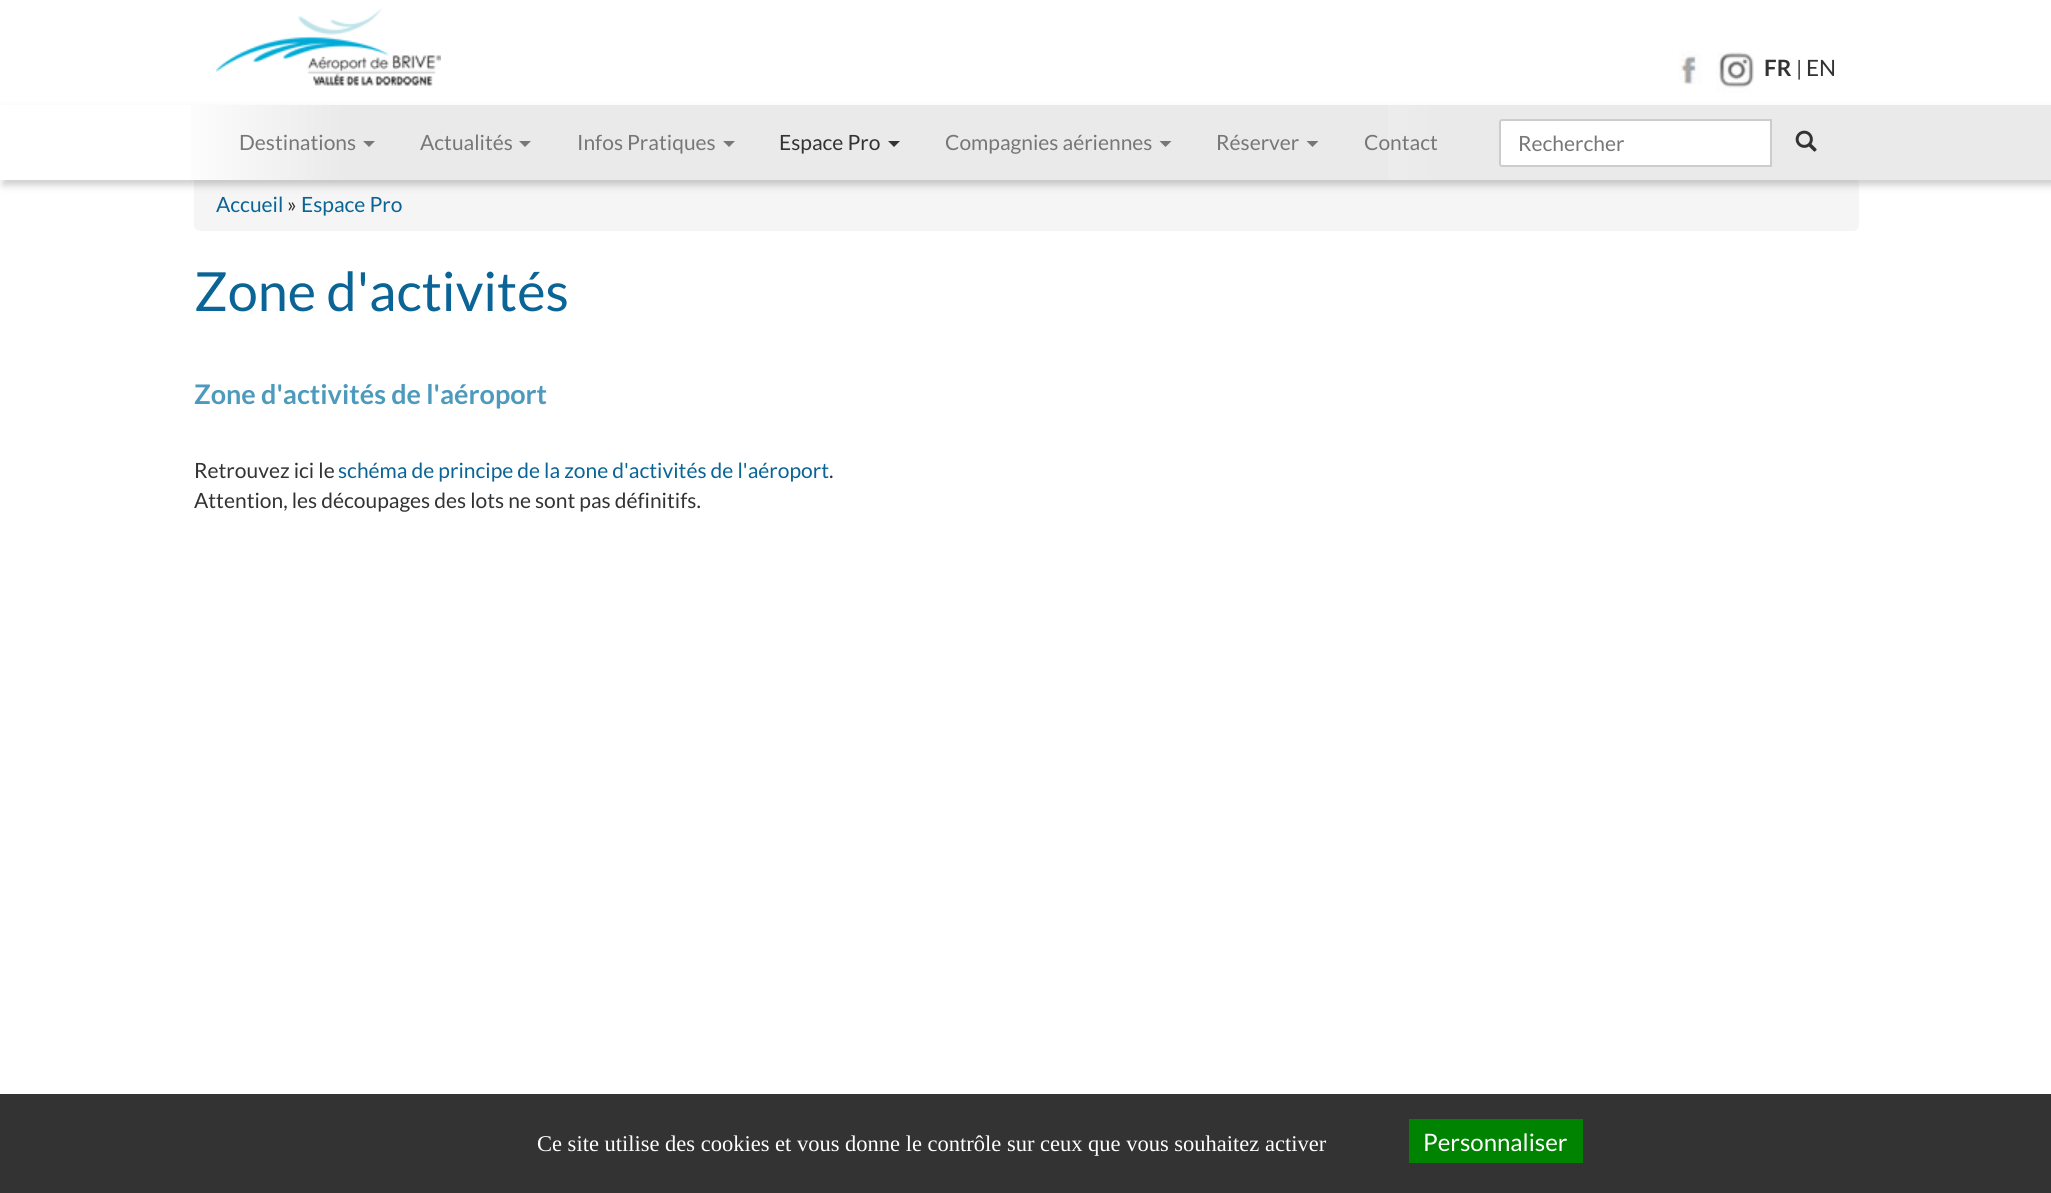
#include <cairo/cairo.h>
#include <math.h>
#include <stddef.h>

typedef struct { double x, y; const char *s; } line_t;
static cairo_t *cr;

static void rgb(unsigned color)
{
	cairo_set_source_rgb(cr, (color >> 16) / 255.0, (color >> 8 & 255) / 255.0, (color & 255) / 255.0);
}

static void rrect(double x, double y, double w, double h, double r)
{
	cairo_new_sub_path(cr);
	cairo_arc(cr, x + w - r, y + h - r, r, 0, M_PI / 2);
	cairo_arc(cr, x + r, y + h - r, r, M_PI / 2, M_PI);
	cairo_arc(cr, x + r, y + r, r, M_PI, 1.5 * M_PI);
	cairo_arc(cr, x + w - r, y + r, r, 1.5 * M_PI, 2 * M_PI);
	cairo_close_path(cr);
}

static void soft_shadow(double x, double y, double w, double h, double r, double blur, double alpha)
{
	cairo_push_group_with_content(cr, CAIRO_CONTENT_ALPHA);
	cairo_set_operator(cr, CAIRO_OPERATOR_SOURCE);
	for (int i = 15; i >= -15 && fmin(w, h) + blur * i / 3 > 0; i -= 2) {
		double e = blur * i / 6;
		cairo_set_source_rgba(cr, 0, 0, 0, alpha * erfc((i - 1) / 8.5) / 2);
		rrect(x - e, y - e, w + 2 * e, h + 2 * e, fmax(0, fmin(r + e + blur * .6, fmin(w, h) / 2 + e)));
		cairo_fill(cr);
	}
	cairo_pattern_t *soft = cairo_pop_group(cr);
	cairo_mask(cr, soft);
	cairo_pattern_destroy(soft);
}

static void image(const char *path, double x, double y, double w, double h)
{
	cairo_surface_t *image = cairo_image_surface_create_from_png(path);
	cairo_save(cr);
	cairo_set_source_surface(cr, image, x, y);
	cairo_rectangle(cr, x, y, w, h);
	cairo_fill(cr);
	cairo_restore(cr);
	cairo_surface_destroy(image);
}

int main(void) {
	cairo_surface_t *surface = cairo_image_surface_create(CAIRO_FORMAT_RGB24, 2051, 1193);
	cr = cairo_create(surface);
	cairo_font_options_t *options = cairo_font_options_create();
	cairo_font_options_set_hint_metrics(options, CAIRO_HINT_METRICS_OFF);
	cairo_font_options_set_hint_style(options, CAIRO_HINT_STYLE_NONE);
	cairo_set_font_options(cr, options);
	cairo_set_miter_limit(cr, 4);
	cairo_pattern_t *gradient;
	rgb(0xffffff);
	cairo_paint(cr);
	image("img/1.png", 216, 8, 225, 78);
	image("img/2.png", 1679, 51, 23, 34);
	image("img/3.png", 1716, 52, 38, 41);
	rgb(0xf5f5f5);
	rrect(194, 177, 1665, 54, 6);
	cairo_fill(cr);
	rgb(0x000000);
	soft_shadow(3, 110, 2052, 75, 0, 4, 0.2);
	gradient = cairo_pattern_create_linear(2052, 143, 0, 142);
	cairo_pattern_add_color_stop_rgba(gradient, 0.3, 0.918, 0.918, 0.918, 1);
	cairo_pattern_add_color_stop_rgba(gradient, 0.5, 1, 1, 1, 1);
	cairo_pattern_add_color_stop_rgba(gradient, 1, 1, 1, 1, 1);
	cairo_set_source(cr, gradient);
	cairo_pattern_destroy(gradient);
	cairo_rectangle(cr, 0, 105, 2051, 75);
	cairo_fill(cr);
	gradient = cairo_pattern_create_linear(171, 143, 1881, 142);
	cairo_pattern_add_color_stop_rgba(gradient, 0, 1, 1, 1, 1);
	cairo_pattern_add_color_stop_rgba(gradient, 0.1, 0.918, 0.918, 0.918, 1);
	cairo_pattern_add_color_stop_rgba(gradient, 1, 0.918, 0.918, 0.918, 1);
	cairo_set_source(cr, gradient);
	cairo_pattern_destroy(gradient);
	cairo_rectangle(cr, 191, 105, 1197, 75);
	cairo_fill(cr);
	rgb(0x777777);
	cairo_new_path(cr);
	cairo_move_to(cr, 363, 141);
	cairo_line_to(cr, 375, 141);
	cairo_line_to(cr, 369, 147);
	cairo_close_path(cr);
	cairo_fill(cr);
	cairo_new_path(cr);
	cairo_move_to(cr, 519, 141);
	cairo_line_to(cr, 531, 141);
	cairo_line_to(cr, 525, 147);
	cairo_close_path(cr);
	cairo_fill(cr);
	cairo_new_path(cr);
	cairo_move_to(cr, 723, 141);
	cairo_line_to(cr, 735, 141);
	cairo_line_to(cr, 729, 147);
	cairo_close_path(cr);
	cairo_fill(cr);
	rgb(0x333333);
	cairo_new_path(cr);
	cairo_move_to(cr, 888, 141);
	cairo_line_to(cr, 900, 141);
	cairo_line_to(cr, 894, 147);
	cairo_close_path(cr);
	cairo_fill(cr);
	rgb(0x777777);
	cairo_new_path(cr);
	cairo_move_to(cr, 1159.5, 141);
	cairo_line_to(cr, 1171.5, 141);
	cairo_line_to(cr, 1165.5, 147);
	cairo_close_path(cr);
	cairo_fill(cr);
	cairo_new_path(cr);
	cairo_move_to(cr, 1306.5, 141);
	cairo_line_to(cr, 1318.5, 141);
	cairo_line_to(cr, 1312.5, 147);
	cairo_close_path(cr);
	cairo_fill(cr);
	rgb(0xffffff);
	cairo_new_path(cr);
	cairo_move_to(cr, 1502, 120);
	cairo_line_to(cr, 1771, 120);
	cairo_line_to(cr, 1771, 166);
	cairo_line_to(cr, 1502, 166);
	cairo_curve_to(cr, 1501, 166, 1500, 165, 1500, 164);
	cairo_line_to(cr, 1500, 122);
	cairo_curve_to(cr, 1500, 121, 1501, 120, 1502, 120);
	cairo_close_path(cr);
	cairo_fill_preserve(cr);
	rgb(0xcccccc);
	cairo_stroke(cr);
	image("img/4.png", 1795, 130, 22, 22);
	rgb(0x333333);
	cairo_rectangle(cr, 0, 1094, 2051, 99);
	cairo_fill(cr);
	rgb(0x008300);
	cairo_rectangle(cr, 1409, 1119, 174, 44);
	cairo_fill(cr);
	cairo_select_font_face(cr, "Lato", CAIRO_FONT_SLANT_NORMAL, CAIRO_FONT_WEIGHT_BOLD);
	cairo_set_font_size(cr, 22.5);
	rgb(0x333333);
	cairo_move_to(cr, 1764, 76);
	cairo_show_text(cr, "FR");
	cairo_select_font_face(cr, "Lato", CAIRO_FONT_SLANT_NORMAL, CAIRO_FONT_WEIGHT_NORMAL);
	cairo_set_font_size(cr, 21);
	cairo_move_to(cr, 1796, 76);
	cairo_show_text(cr, "|");
	cairo_set_font_size(cr, 22.5);
	cairo_move_to(cr, 1806, 76);
	cairo_show_text(cr, "EN");
	cairo_set_font_size(cr, 21);
	rgb(0x777777);
	{
		static const line_t items[] = {
			{239, 150, "Destinations"},
			{420, 150, "Actualités"},
			{577, 150, "Infos Pratiques"},
		};
		for (size_t i = 0; i < sizeof items / sizeof *items; i++) {
			cairo_move_to(cr, items[i].x, items[i].y);
			cairo_show_text(cr, items[i].s);
		}
	}
	rgb(0x333333);
	cairo_move_to(cr, 779, 150);
	cairo_show_text(cr, "Espace Pro");
	rgb(0x777777);
	{
		static const line_t items[] = {
			{945, 150, "Compagnies aériennes"},
			{1216, 150, "Réserver"},
			{1364, 150, "Contact"},
			{1518, 151, "Rechercher"},
		};
		for (size_t i = 0; i < sizeof items / sizeof *items; i++) {
			cairo_move_to(cr, items[i].x, items[i].y);
			cairo_show_text(cr, items[i].s);
		}
	}
	rgb(0x0a6495);
	cairo_move_to(cr, 216, 212);
	cairo_show_text(cr, "Accueil");
	rgb(0x333333);
	cairo_move_to(cr, 287, 212);
	cairo_show_text(cr, "»");
	rgb(0x0a6495);
	cairo_move_to(cr, 301, 212);
	cairo_show_text(cr, "Espace Pro");
	cairo_set_font_size(cr, 54);
	cairo_move_to(cr, 194, 311);
	cairo_show_text(cr, "Zone d'activités");
	cairo_select_font_face(cr, "Lato", CAIRO_FONT_SLANT_NORMAL, CAIRO_FONT_WEIGHT_BOLD);
	cairo_set_font_size(cr, 27);
	rgb(0x4d9abd);
	cairo_move_to(cr, 194, 404);
	cairo_show_text(cr, "Zone d'activités de l'aéroport");
	cairo_select_font_face(cr, "Lato", CAIRO_FONT_SLANT_NORMAL, CAIRO_FONT_WEIGHT_NORMAL);
	cairo_set_font_size(cr, 21);
	rgb(0x333333);
	cairo_move_to(cr, 194, 478);
	cairo_show_text(cr, "Retrouvez ici le");
	rgb(0x0a6495);
	cairo_move_to(cr, 338, 478);
	cairo_show_text(cr, "schéma de principe de la zone d'activités de l'aéroport");
	rgb(0x333333);
	cairo_move_to(cr, 829, 478);
	cairo_show_text(cr, ".");
	cairo_move_to(cr, 194, 508);
	cairo_show_text(cr, "Attention, les découpages des lots ne sont pas définitifs.");
	cairo_select_font_face(cr, "Liberation Serif", CAIRO_FONT_SLANT_NORMAL, CAIRO_FONT_WEIGHT_NORMAL);
	cairo_set_font_size(cr, 22.5);
	rgb(0xffffff);
	cairo_move_to(cr, 537, 1151);
	cairo_show_text(cr, "Ce site utilise des cookies et vous donne le contrôle sur ceux que vous souhaitez activer");
	cairo_select_font_face(cr, "Lato", CAIRO_FONT_SLANT_NORMAL, CAIRO_FONT_WEIGHT_NORMAL);
	cairo_set_font_size(cr, 24);
	cairo_move_to(cr, 1423, 1151);
	cairo_show_text(cr, "Personnaliser");
	cairo_surface_write_to_png(surface, "page.png");
	cairo_font_options_destroy(options);
	cairo_destroy(cr);
	cairo_surface_destroy(surface);
	return 0;
}
